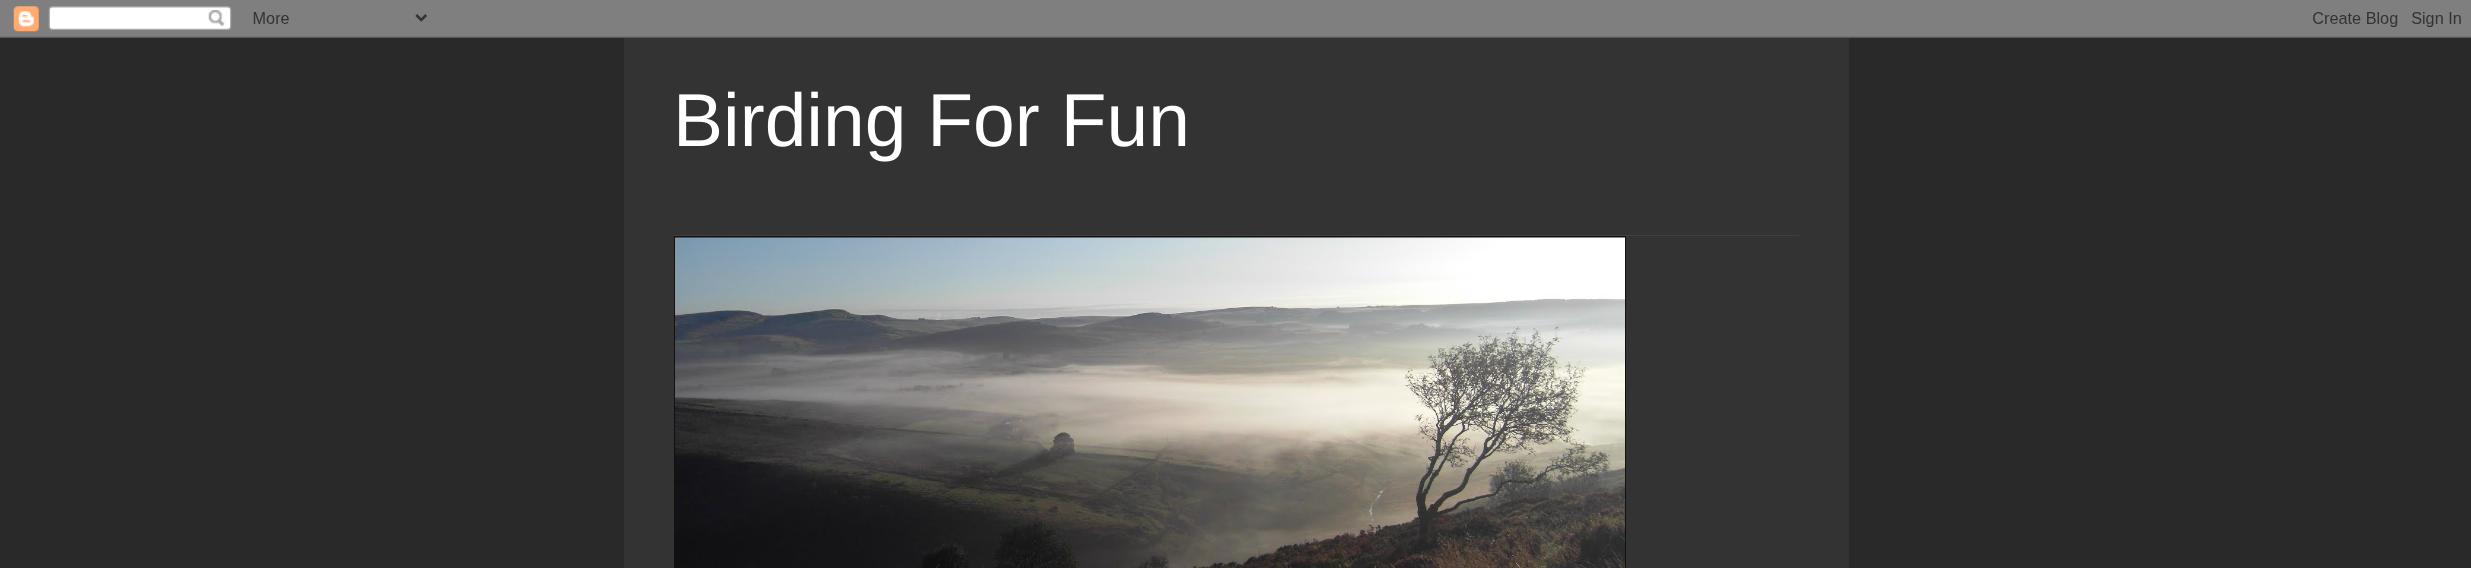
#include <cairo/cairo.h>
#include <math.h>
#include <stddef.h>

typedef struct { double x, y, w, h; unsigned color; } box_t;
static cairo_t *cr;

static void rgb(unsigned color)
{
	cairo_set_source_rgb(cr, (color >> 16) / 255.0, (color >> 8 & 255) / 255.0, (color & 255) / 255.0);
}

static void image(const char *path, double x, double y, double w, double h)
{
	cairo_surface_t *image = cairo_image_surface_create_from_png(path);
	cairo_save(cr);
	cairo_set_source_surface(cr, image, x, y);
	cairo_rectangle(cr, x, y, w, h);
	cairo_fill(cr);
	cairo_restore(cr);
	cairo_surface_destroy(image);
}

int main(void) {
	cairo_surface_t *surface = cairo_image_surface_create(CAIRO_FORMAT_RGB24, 2471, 568);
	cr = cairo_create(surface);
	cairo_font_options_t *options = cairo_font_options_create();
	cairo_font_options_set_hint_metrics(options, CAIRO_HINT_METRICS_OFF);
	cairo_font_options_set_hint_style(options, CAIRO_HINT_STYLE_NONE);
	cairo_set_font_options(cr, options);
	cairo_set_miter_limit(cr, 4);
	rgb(0x292929);
	cairo_paint(cr);
	image("img/1.png", 0, 0, 2471, 38);
	{
		static const box_t items[] = {
			{624, 38, 1225, 530, 0x333333},
			{674, 235, 1125, 1, 0x404040},
			{674, 236, 952, 332, 0x111111},
		};
		for (size_t i = 0; i < sizeof items / sizeof *items; i++) {
			rgb(items[i].color);
			cairo_rectangle(cr, items[i].x, items[i].y, items[i].w, items[i].h);
			cairo_fill(cr);
		}
	}
	image("img/2.png", 675, 237, 950, 331);
	cairo_select_font_face(cr, "Liberation Sans", CAIRO_FONT_SLANT_NORMAL, CAIRO_FONT_WEIGHT_NORMAL);
	cairo_set_font_size(cr, 75);
	rgb(0xffffff);
	cairo_move_to(cr, 673, 146);
	cairo_show_text(cr, "Birding For Fun");
	cairo_surface_write_to_png(surface, "page.png");
	cairo_font_options_destroy(options);
	cairo_destroy(cr);
	cairo_surface_destroy(surface);
	return 0;
}
